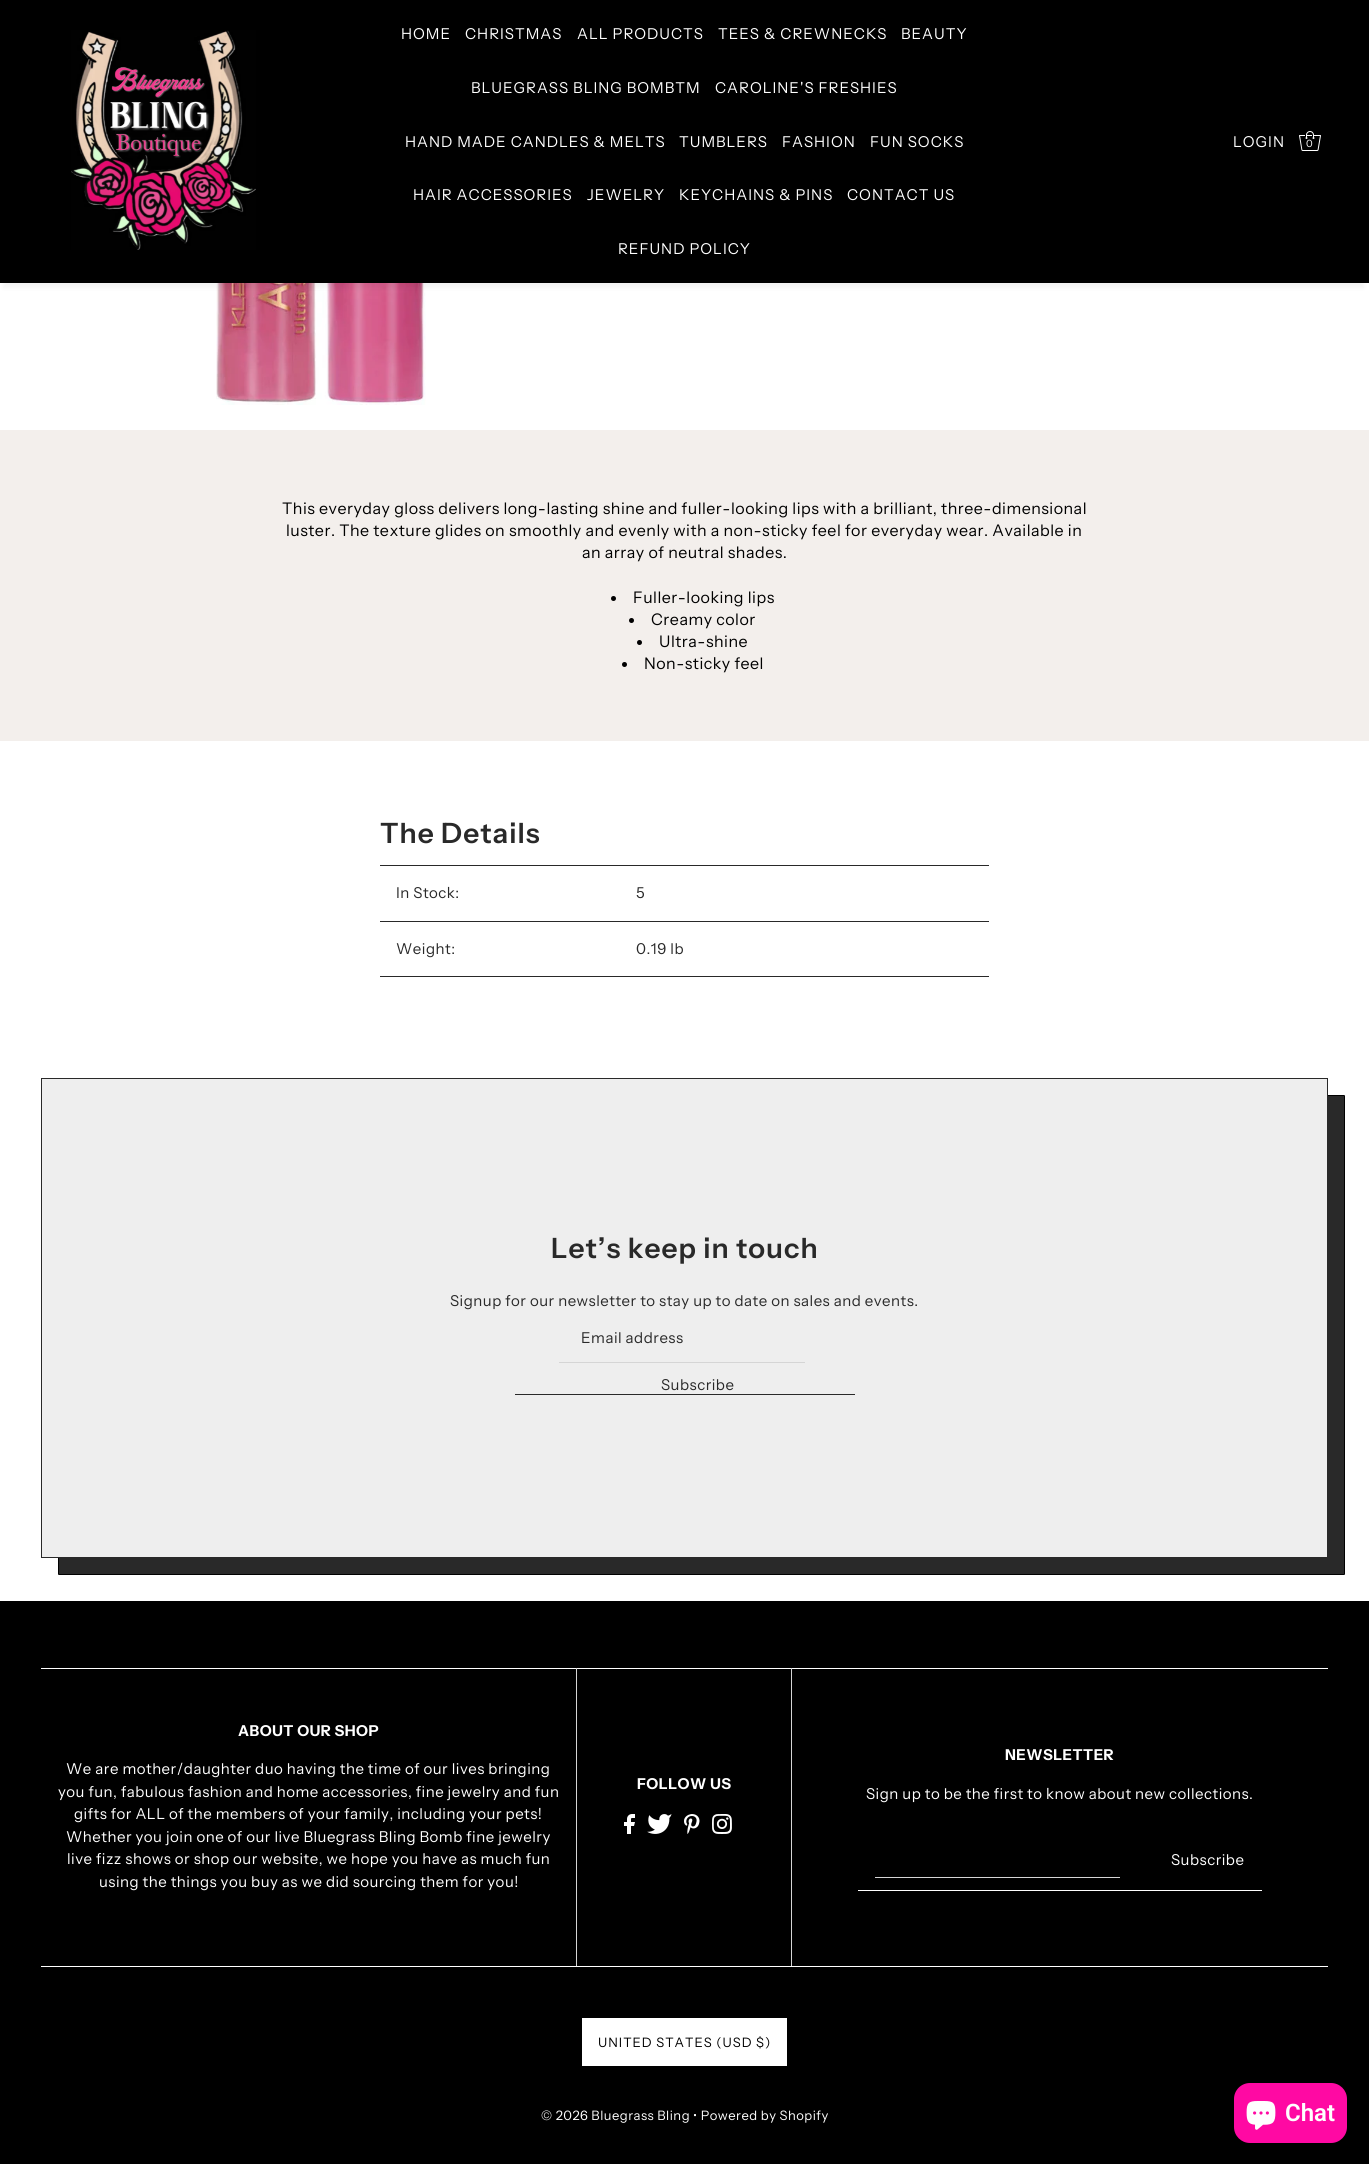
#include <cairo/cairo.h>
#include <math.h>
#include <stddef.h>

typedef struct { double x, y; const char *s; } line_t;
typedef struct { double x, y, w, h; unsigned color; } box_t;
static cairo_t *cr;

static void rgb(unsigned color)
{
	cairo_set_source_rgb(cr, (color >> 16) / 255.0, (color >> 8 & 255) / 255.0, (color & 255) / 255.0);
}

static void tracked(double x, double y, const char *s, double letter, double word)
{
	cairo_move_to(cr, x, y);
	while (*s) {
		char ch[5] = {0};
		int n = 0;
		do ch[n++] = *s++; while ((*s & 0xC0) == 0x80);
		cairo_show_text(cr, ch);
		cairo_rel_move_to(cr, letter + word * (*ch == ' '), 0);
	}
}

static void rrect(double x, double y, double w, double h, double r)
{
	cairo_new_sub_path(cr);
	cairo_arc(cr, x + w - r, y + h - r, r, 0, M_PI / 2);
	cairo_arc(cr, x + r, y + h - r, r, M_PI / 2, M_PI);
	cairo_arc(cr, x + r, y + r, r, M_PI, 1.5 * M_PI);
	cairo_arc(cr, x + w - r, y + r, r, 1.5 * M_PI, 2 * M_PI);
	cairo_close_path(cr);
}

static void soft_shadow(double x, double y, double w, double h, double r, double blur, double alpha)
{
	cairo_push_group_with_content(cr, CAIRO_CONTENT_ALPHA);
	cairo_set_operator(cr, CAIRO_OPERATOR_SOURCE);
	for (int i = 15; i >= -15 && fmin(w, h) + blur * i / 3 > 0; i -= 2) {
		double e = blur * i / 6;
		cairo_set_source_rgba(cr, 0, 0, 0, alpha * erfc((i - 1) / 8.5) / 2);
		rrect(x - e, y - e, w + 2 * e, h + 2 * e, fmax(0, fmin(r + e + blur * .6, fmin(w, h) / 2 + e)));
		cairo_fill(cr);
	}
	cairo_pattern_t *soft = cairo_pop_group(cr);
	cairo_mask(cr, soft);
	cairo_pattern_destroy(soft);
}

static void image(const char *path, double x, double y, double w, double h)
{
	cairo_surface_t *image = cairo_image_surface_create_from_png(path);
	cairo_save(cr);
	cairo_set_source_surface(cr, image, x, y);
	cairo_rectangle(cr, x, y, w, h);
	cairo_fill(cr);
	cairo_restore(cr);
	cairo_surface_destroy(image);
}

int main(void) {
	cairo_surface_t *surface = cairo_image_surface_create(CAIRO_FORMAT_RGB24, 1369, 2164);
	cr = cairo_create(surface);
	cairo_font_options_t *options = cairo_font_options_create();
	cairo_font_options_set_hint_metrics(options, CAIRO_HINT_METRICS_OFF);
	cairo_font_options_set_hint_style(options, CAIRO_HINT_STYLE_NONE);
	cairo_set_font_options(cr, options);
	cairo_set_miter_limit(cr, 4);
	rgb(0xffffff);
	cairo_paint(cr);
	image("img/3.png", 216, 283, 210, 122);
	rgb(0x000000);
	soft_shadow(3, 13, 1361, 275, 0, 2, 0.05);
	rgb(0x000000);
	cairo_rectangle(cr, 0, 0, 1369, 283);
	cairo_fill(cr);
	image("img/1.png", 71, 30, 185, 220);
	image("img/2.png", 1299, 131, 22, 20);
	rgb(0xf3efec);
	cairo_rectangle(cr, 0, 430, 1369, 311);
	cairo_fill(cr);
	rgb(0x000000);
	cairo_arc(cr, 613.5, 598.5, 2.5, 0, 2 * M_PI);
	cairo_fill(cr);
	cairo_arc(cr, 631.5, 620.5, 2.5, 0, 2 * M_PI);
	cairo_fill(cr);
	cairo_arc(cr, 639.5, 642.5, 2.5, 0, 2 * M_PI);
	cairo_fill(cr);
	cairo_arc(cr, 624.5, 664.5, 2.5, 0, 2 * M_PI);
	cairo_fill(cr);
	{
		static const box_t items[] = {
			{380, 865, 609, 1, 0x292929},
			{380, 976, 609, 1, 0x292929},
			{380, 921, 609, 1, 0x292929},
		};
		for (size_t i = 0; i < sizeof items / sizeof *items; i++) {
			rgb(items[i].color);
			cairo_rectangle(cr, items[i].x, items[i].y, items[i].w, items[i].h);
			cairo_fill(cr);
		}
	}
	rrect(58.5, 1095.5, 1286, 479, 0.5);
	cairo_fill_preserve(cr);
	rgb(0x000000);
	cairo_set_line_width(cr, 1);
	cairo_stroke(cr);
	rgb(0xeeeeee);
	cairo_rectangle(cr, 41.5, 1078.5, 1286, 479);
	cairo_fill_preserve(cr);
	rgb(0x292929);
	cairo_stroke(cr);
	{
		static const box_t items[] = {
			{515, 1394, 340, 1, 0x292929},
			{559, 1362, 246, 1, 0xd5d5d5},
			{0, 1601, 1369, 563, 0x000000},
			{41, 1668, 1287, 1, 0xffffff},
			{576, 1668, 1, 299, 0xd5d5d5},
			{41, 1966, 536, 1, 0xffffff},
			{791, 1668, 1, 299, 0xd5d5d5},
			{577, 1966, 751, 1, 0xffffff},
		};
		for (size_t i = 0; i < sizeof items / sizeof *items; i++) {
			rgb(items[i].color);
			cairo_rectangle(cr, items[i].x, items[i].y, items[i].w, items[i].h);
			cairo_fill(cr);
		}
	}
	image("img/4.png", 624, 1814, 11, 20);
	image("img/5.png", 647, 1814, 25, 20);
	image("img/6.png", 684, 1814, 16, 20);
	image("img/7.png", 712, 1814, 20, 20);
	{
		static const box_t items[] = {
			{858, 1890, 404, 1, 0xffffff},
			{875, 1877, 245, 1, 0xd5d5d5},
			{582, 2018, 205, 48, 0xffffff},
		};
		for (size_t i = 0; i < sizeof items / sizeof *items; i++) {
			rgb(items[i].color);
			cairo_rectangle(cr, items[i].x, items[i].y, items[i].w, items[i].h);
			cairo_fill(cr);
		}
	}
	rgb(0xff09a3);
	rrect(1234, 2083, 113, 60, 16);
	cairo_fill(cr);
	image("img/8.png", 1246, 2101, 30, 29);
	cairo_select_font_face(cr, "Instrument Sans", CAIRO_FONT_SLANT_NORMAL, CAIRO_FONT_WEIGHT_NORMAL);
	cairo_set_font_size(cr, 15);
	rgb(0xffffff);
	{
		static const line_t items[] = {
			{401, 39, "HOME"},
			{465, 39, "CHRISTMAS"},
			{577, 39, "ALL PRODUCTS"},
			{718, 39, "TEES & CREWNECKS"},
			{901, 39, "BEAUTY"},
			{471, 93, "BLUEGRASS BLING BOMBTM"},
			{715, 93, "CAROLINE'S FRESHIES"},
			{405, 147, "HAND MADE CANDLES & MELTS"},
			{679, 147, "TUMBLERS"},
			{782, 147, "FASHION"},
			{870, 147, "FUN SOCKS"},
			{413, 200, "HAIR ACCESSORIES"},
			{587, 200, "JEWELRY"},
			{679, 200, "KEYCHAINS & PINS"},
			{847, 200, "CONTACT US"},
			{618, 254, "REFUND POLICY"},
			{1233, 147, "LOGIN"},
		};
		for (size_t i = 0; i < sizeof items / sizeof *items; i++) {
			tracked(items[i].x, items[i].y, items[i].s, 1, 0);
		}
	}
	cairo_set_font_size(cr, 10);
	tracked(1306, 147, "0", 1, 0);
	cairo_set_font_size(cr, 16);
	rgb(0x000000);
	{
		static const line_t items[] = {
			{282, 514, "This everyday gloss delivers long-lasting shine and fuller-looking lips with a brilliant, three-dimensional"},
			{286, 536, "luster. The texture glides on smoothly and evenly with a non-sticky feel for everyday wear. Available in"},
			{582, 558, "an array of neutral shades."},
			{633, 603, "Fuller-looking lips"},
			{651, 625, "Creamy color"},
			{659, 647, "Ultra-shine"},
			{644, 669, "Non-sticky feel"},
		};
		for (size_t i = 0; i < sizeof items / sizeof *items; i++) {
			tracked(items[i].x, items[i].y, items[i].s, 0.5, 0);
		}
	}
	cairo_select_font_face(cr, "Instrument Sans SemiBold", CAIRO_FONT_SLANT_NORMAL, CAIRO_FONT_WEIGHT_NORMAL);
	cairo_set_font_size(cr, 28);
	rgb(0x292929);
	tracked(380, 843, "The Details", 1, 0);
	cairo_select_font_face(cr, "Instrument Sans", CAIRO_FONT_SLANT_NORMAL, CAIRO_FONT_WEIGHT_NORMAL);
	cairo_set_font_size(cr, 15);
	{
		static const line_t items[] = {
			{396, 898, "In Stock:"},
			{636, 898, "5"},
			{396, 954, "Weight:"},
			{636, 954, "0.19 lb"},
		};
		for (size_t i = 0; i < sizeof items / sizeof *items; i++) {
			tracked(items[i].x, items[i].y, items[i].s, 0.5, 0);
		}
	}
	cairo_select_font_face(cr, "Instrument Sans SemiBold", CAIRO_FONT_SLANT_NORMAL, CAIRO_FONT_WEIGHT_NORMAL);
	cairo_set_font_size(cr, 28);
	tracked(551, 1258, "Let’s keep in touch", 1, 0);
	cairo_select_font_face(cr, "Instrument Sans", CAIRO_FONT_SLANT_NORMAL, CAIRO_FONT_WEIGHT_NORMAL);
	cairo_set_font_size(cr, 15);
	{
		static const line_t items[] = {
			{450, 1306, "Signup for our newsletter to stay up to date on sales and events."},
			{581, 1343, "Email address"},
			{661, 1390, "Subscribe"},
		};
		for (size_t i = 0; i < sizeof items / sizeof *items; i++) {
			tracked(items[i].x, items[i].y, items[i].s, 0.5, 0);
		}
	}
	cairo_select_font_face(cr, "Instrument Sans", CAIRO_FONT_SLANT_NORMAL, CAIRO_FONT_WEIGHT_BOLD);
	rgb(0xffffff);
	tracked(238, 1736, "ABOUT OUR SHOP", 0.5, 0);
	cairo_select_font_face(cr, "Instrument Sans", CAIRO_FONT_SLANT_NORMAL, CAIRO_FONT_WEIGHT_NORMAL);
	{
		static const line_t items[] = {
			{66, 1774, "We are mother/daughter duo having the time of our lives bringing"},
			{58, 1797, "you fun, fabulous fashion and home accessories, fine jewelry and fun"},
			{74, 1819, "gifts for ALL of the members of your family, including your pets!"},
			{66, 1842, "Whether you join one of our live Bluegrass Bling Bomb fine jewelry"},
			{67, 1864, "live fizz shows or shop our website, we hope you have as much fun"},
			{99, 1887, "using the things you buy as we did sourcing them for you!"},
		};
		for (size_t i = 0; i < sizeof items / sizeof *items; i++) {
			tracked(items[i].x, items[i].y, items[i].s, 0.5, 0);
		}
	}
	cairo_select_font_face(cr, "Instrument Sans", CAIRO_FONT_SLANT_NORMAL, CAIRO_FONT_WEIGHT_BOLD);
	tracked(637, 1789, "FOLLOW US", 0.5, 0);
	tracked(1005, 1760, "NEWSLETTER", 0.5, 0);
	cairo_select_font_face(cr, "Instrument Sans", CAIRO_FONT_SLANT_NORMAL, CAIRO_FONT_WEIGHT_NORMAL);
	tracked(866, 1799, "Sign up to be the first to know about new collections.", 0.5, 0);
	tracked(1171, 1865, "Subscribe", 0.5, 0);
	cairo_set_font_size(cr, 13);
	rgb(0x000000);
	tracked(598, 2047, "UNITED STATES (USD $)", 1, 0);
	rgb(0xffffff);
	tracked(541, 2120, "© 2026 Bluegrass Bling • Powered by Shopify", 0.5, 0);
	cairo_select_font_face(cr, "Roboto SemiBold", CAIRO_FONT_SLANT_NORMAL, CAIRO_FONT_WEIGHT_NORMAL);
	cairo_set_font_size(cr, 24);
	cairo_move_to(cr, 1285, 2121);
	cairo_show_text(cr, "Chat");
	cairo_surface_write_to_png(surface, "page.png");
	cairo_font_options_destroy(options);
	cairo_destroy(cr);
	cairo_surface_destroy(surface);
	return 0;
}
